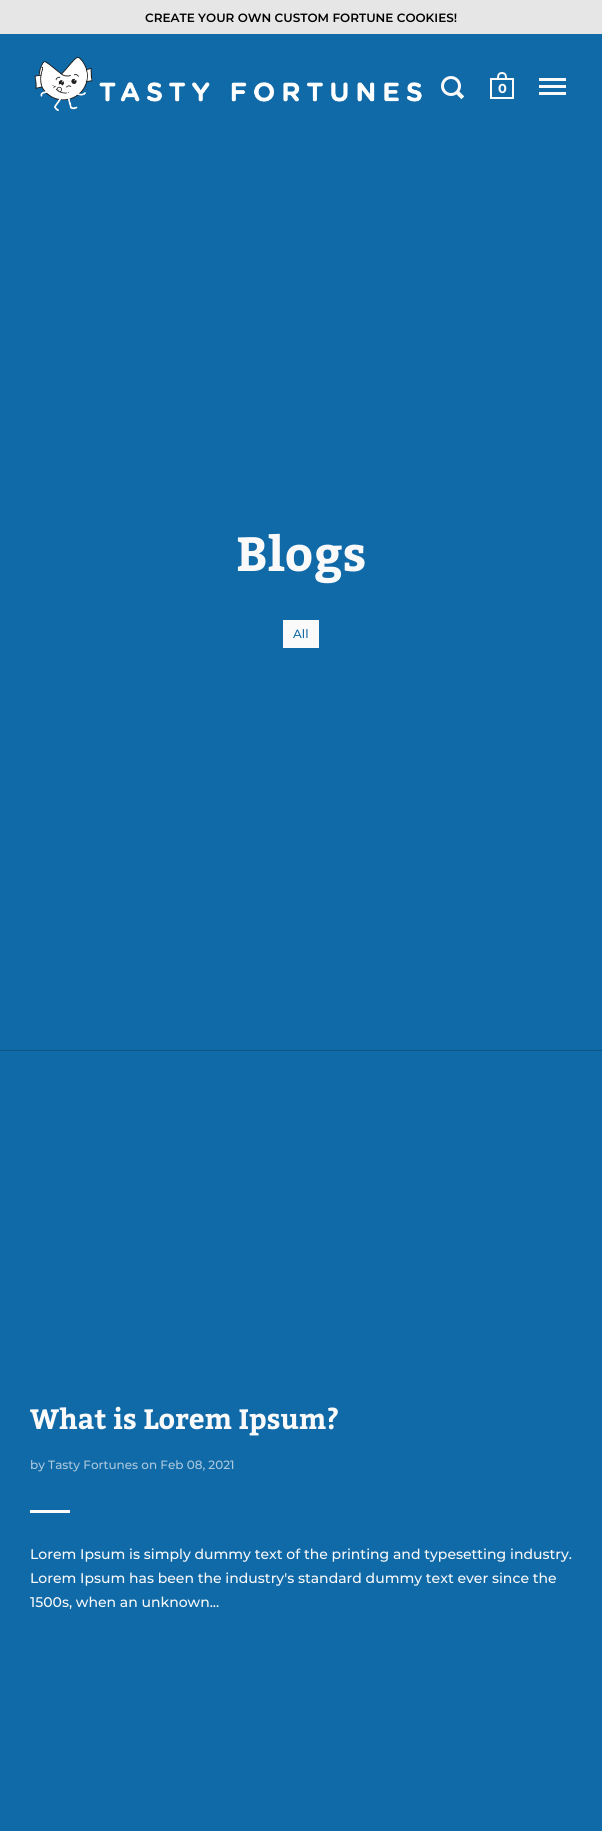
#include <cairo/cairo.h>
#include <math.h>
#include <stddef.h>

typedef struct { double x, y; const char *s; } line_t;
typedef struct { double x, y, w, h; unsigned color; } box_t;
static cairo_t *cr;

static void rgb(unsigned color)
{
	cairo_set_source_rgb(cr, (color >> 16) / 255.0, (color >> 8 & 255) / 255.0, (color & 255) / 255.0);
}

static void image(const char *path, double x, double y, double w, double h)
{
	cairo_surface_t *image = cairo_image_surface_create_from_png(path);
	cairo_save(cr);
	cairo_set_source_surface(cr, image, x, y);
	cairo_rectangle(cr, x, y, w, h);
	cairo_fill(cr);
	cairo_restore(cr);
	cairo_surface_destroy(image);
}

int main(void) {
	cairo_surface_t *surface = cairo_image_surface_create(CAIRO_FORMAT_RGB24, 602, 1831);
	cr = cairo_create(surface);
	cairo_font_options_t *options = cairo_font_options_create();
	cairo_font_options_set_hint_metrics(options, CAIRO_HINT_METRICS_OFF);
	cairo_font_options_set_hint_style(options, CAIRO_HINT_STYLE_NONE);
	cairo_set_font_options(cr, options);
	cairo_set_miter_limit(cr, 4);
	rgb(0x116aa8);
	cairo_paint(cr);
	rgb(0xe6e6e6);
	cairo_rectangle(cr, 0, 0, 602, 34);
	cairo_fill(cr);
	image("img/1.png", 34, 57, 388, 54);
	image("img/2.png", 441, 76, 24, 24);
	image("img/3.png", 490, 72, 24, 27);
	{
		static const box_t items[] = {
			{539, 85, 27, 3, 0xfafafa},
			{539, 78, 27, 3, 0xfafafa},
			{539, 92, 27, 3, 0xfafafa},
			{0, 1050, 602, 1, 0x0e5688},
			{283, 620, 36, 28, 0xfafafa},
			{30, 1510, 40, 3, 0xfafafa},
		};
		for (size_t i = 0; i < sizeof items / sizeof *items; i++) {
			rgb(items[i].color);
			cairo_rectangle(cr, items[i].x, items[i].y, items[i].w, items[i].h);
			cairo_fill(cr);
		}
	}
	cairo_select_font_face(cr, "Montserrat SemiBold", CAIRO_FONT_SLANT_NORMAL, CAIRO_FONT_WEIGHT_NORMAL);
	cairo_set_font_size(cr, 12);
	rgb(0x000000);
	cairo_move_to(cr, 145, 22);
	cairo_show_text(cr, "CREATE YOUR OWN CUSTOM FORTUNE COOKIES!");
	cairo_select_font_face(cr, "Montserrat", CAIRO_FONT_SLANT_NORMAL, CAIRO_FONT_WEIGHT_BOLD);
	cairo_set_font_size(cr, 13);
	rgb(0xfafafa);
	cairo_move_to(cr, 498, 93);
	cairo_show_text(cr, "0");
	cairo_select_font_face(cr, "Bitter", CAIRO_FONT_SLANT_NORMAL, CAIRO_FONT_WEIGHT_BOLD);
	cairo_set_font_size(cr, 48);
	cairo_move_to(cr, 236, 571);
	cairo_show_text(cr, "Blogs");
	cairo_select_font_face(cr, "Montserrat Medium", CAIRO_FONT_SLANT_NORMAL, CAIRO_FONT_WEIGHT_NORMAL);
	cairo_set_font_size(cr, 12);
	rgb(0x116aa8);
	cairo_move_to(cr, 293, 638);
	cairo_show_text(cr, "All");
	cairo_select_font_face(cr, "Bitter", CAIRO_FONT_SLANT_NORMAL, CAIRO_FONT_WEIGHT_BOLD);
	cairo_set_font_size(cr, 28);
	rgb(0xfafafa);
	cairo_move_to(cr, 30, 1429);
	cairo_show_text(cr, "What is Lorem Ipsum?");
	cairo_select_font_face(cr, "Montserrat Medium", CAIRO_FONT_SLANT_NORMAL, CAIRO_FONT_WEIGHT_NORMAL);
	cairo_set_font_size(cr, 12);
	rgb(0xabc9de);
	cairo_move_to(cr, 30, 1469);
	cairo_show_text(cr, "by Tasty Fortunes on Feb 08, 2021");
	cairo_set_font_size(cr, 14);
	rgb(0xfafafa);
	{
		static const line_t items[] = {
			{30, 1559, "Lorem Ipsum is simply dummy text of the printing and typesetting industry."},
			{30, 1583, "Lorem Ipsum has been the industry's standard dummy text ever since the"},
			{30, 1607, "1500s, when an unknown..."},
		};
		for (size_t i = 0; i < sizeof items / sizeof *items; i++) {
			cairo_move_to(cr, items[i].x, items[i].y);
			cairo_show_text(cr, items[i].s);
		}
	}
	cairo_surface_write_to_png(surface, "page.png");
	cairo_font_options_destroy(options);
	cairo_destroy(cr);
	cairo_surface_destroy(surface);
	return 0;
}
